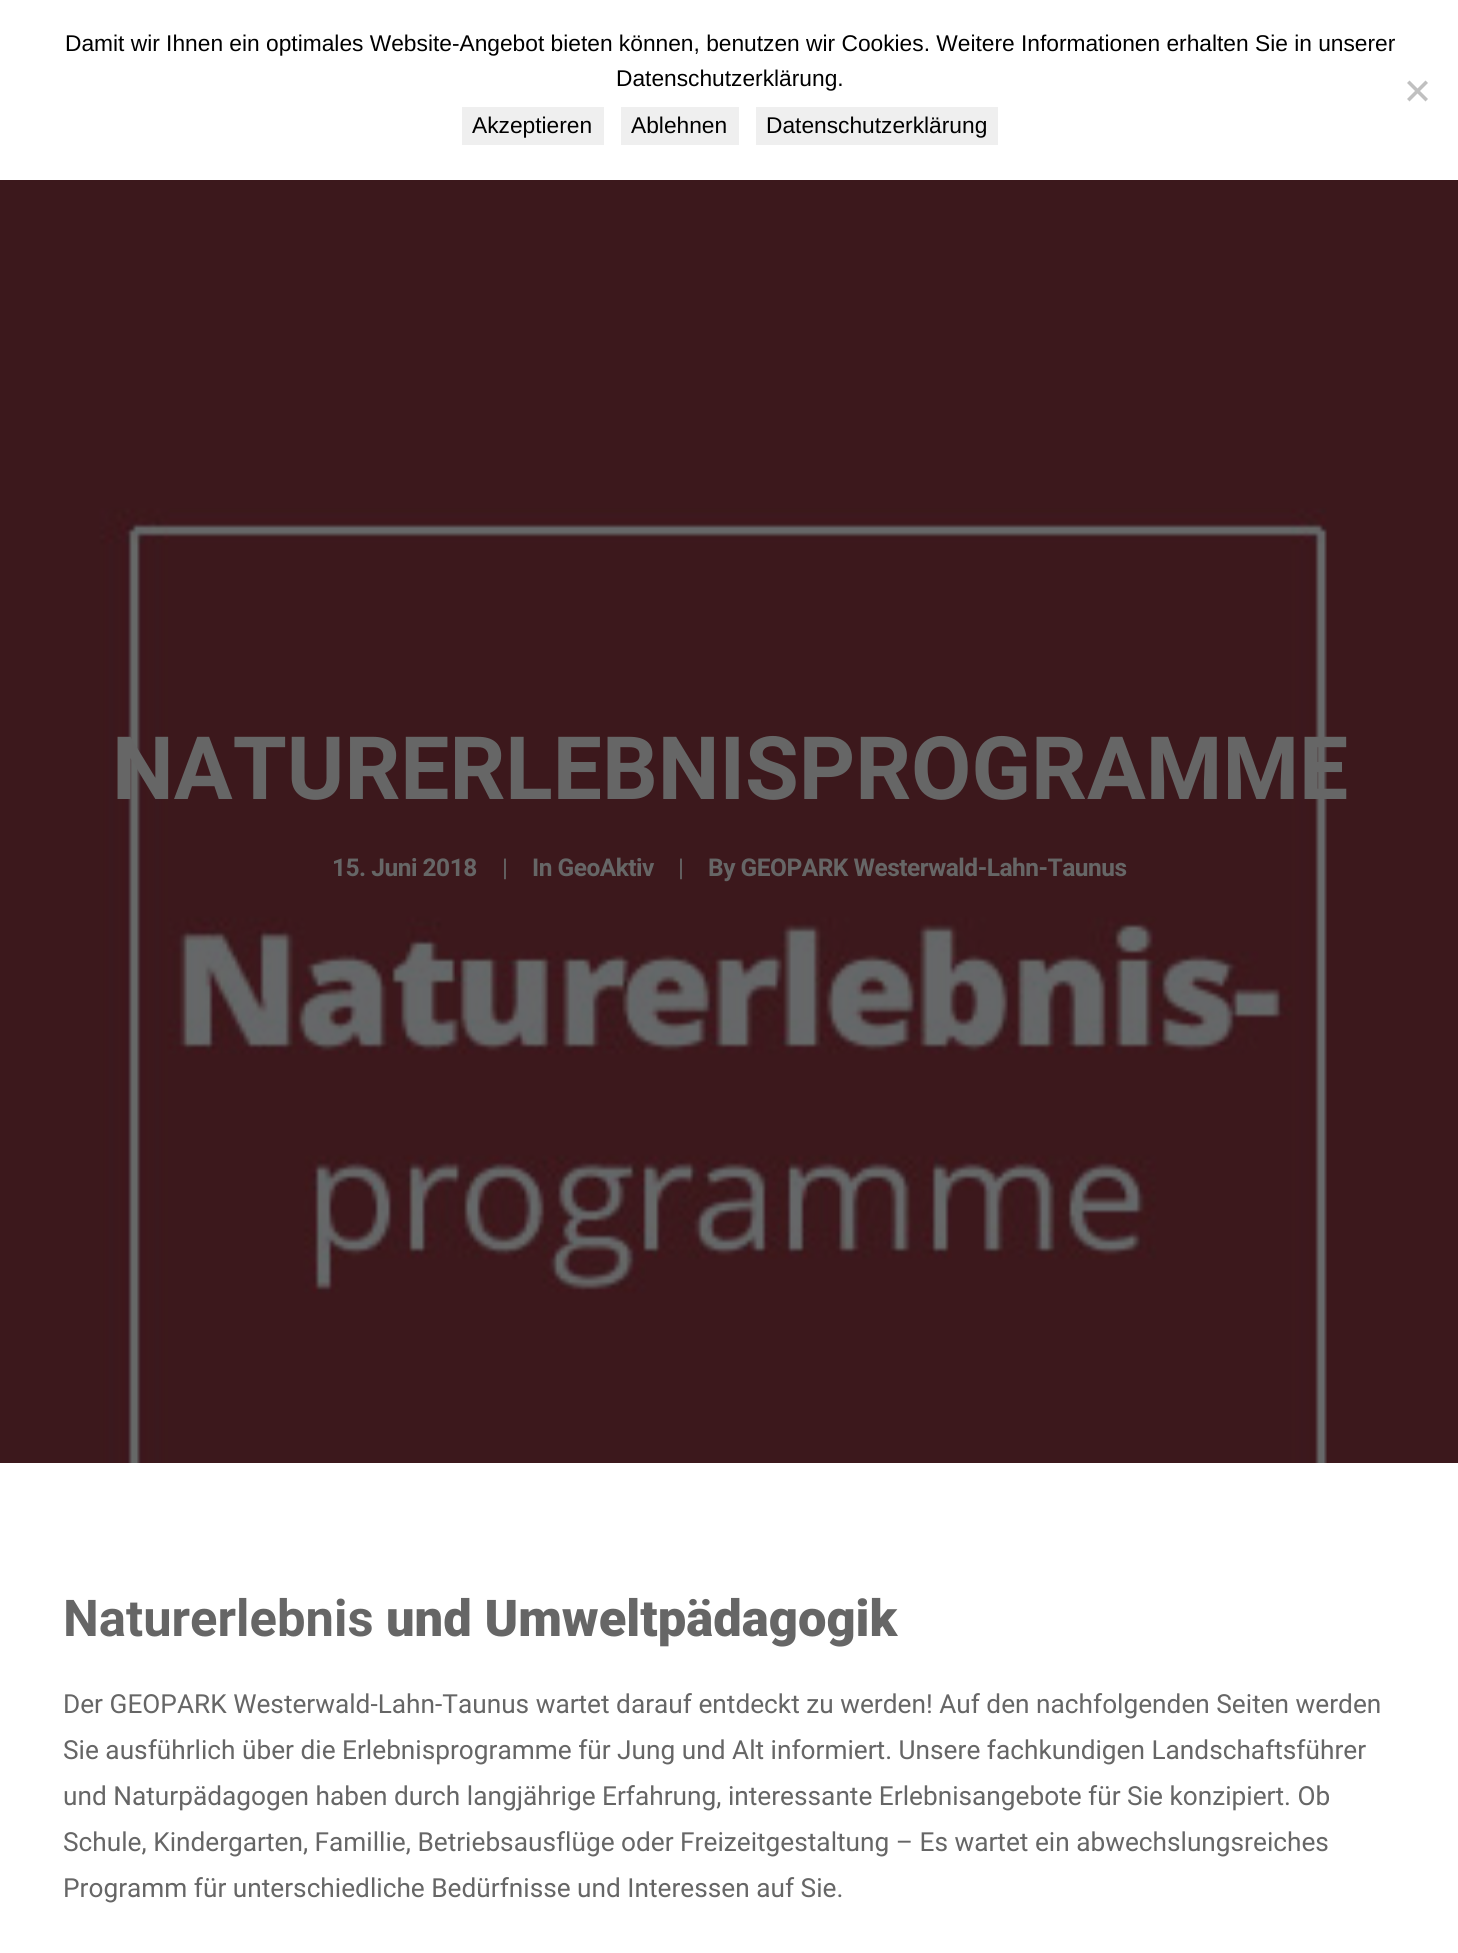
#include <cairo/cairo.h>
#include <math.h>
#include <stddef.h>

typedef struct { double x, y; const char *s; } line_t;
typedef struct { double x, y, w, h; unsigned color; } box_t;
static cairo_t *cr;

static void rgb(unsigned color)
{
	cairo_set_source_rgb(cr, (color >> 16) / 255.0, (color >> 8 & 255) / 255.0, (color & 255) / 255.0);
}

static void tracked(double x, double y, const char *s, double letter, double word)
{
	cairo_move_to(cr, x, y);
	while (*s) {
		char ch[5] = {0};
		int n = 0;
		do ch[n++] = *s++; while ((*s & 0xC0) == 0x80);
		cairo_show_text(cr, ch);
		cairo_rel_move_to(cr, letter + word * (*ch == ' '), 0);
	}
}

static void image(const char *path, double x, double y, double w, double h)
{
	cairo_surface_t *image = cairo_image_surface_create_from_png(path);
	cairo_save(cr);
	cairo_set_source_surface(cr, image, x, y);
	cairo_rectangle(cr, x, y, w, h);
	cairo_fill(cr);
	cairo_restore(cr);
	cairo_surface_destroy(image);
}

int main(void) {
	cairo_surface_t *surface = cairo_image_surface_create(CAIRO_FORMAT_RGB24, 1458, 1953);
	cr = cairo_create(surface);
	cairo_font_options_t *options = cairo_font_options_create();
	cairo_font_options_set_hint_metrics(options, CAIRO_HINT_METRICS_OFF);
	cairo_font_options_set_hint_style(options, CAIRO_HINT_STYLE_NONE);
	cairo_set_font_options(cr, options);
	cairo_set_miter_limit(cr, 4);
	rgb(0xffffff);
	cairo_paint(cr);
	rgb(0xc0c0c0);
	cairo_new_path(cr);
	cairo_move_to(cr, 1425.5, 80.5);
	cairo_line_to(cr, 1428, 83);
	cairo_line_to(cr, 1409.5, 101.5);
	cairo_line_to(cr, 1407, 99);
	cairo_close_path(cr);
	cairo_fill(cr);
	cairo_new_path(cr);
	cairo_move_to(cr, 1407, 83);
	cairo_line_to(cr, 1409.5, 80.5);
	cairo_line_to(cr, 1428, 99);
	cairo_line_to(cr, 1425.5, 101.5);
	cairo_close_path(cr);
	cairo_fill(cr);
	{
		static const box_t items[] = {
			{462, 107, 142, 38, 0xefefef},
			{621, 107, 118, 38, 0xefefef},
			{756, 107, 242, 38, 0xefefef},
		};
		for (size_t i = 0; i < sizeof items / sizeof *items; i++) {
			rgb(items[i].color);
			cairo_rectangle(cr, items[i].x, items[i].y, items[i].w, items[i].h);
			cairo_fill(cr);
		}
	}
	image("img/1.png", 0, 180, 1458, 1283);
	cairo_select_font_face(cr, "Liberation Sans", CAIRO_FONT_SLANT_NORMAL, CAIRO_FONT_WEIGHT_NORMAL);
	cairo_set_font_size(cr, 22.75);
	rgb(0x000000);
	{
		static const line_t items[] = {
			{65, 51, "Damit wir Ihnen ein optimales Website-Angebot bieten können, benutzen wir Cookies. Weitere Informationen erhalten Sie in unserer"},
			{616, 86, "Datenschutzerklärung."},
			{472, 133, "Akzeptieren"},
			{631, 133, "Ablehnen"},
			{766, 133, "Datenschutzerklärung"},
		};
		for (size_t i = 0; i < sizeof items / sizeof *items; i++) {
			cairo_move_to(cr, items[i].x, items[i].y);
			cairo_show_text(cr, items[i].s);
		}
	}
	cairo_select_font_face(cr, "Roboto", CAIRO_FONT_SLANT_NORMAL, CAIRO_FONT_WEIGHT_BOLD);
	cairo_set_font_size(cr, 87.5);
	rgb(0x666666);
	cairo_move_to(cr, 112, 799);
	cairo_show_text(cr, "NATURERLEBNISPROGRAMME");
	cairo_set_font_size(cr, 24.5);
	tracked(332, 876, "15. Juni 2018", -0.5, 0);
	cairo_select_font_face(cr, "Roboto", CAIRO_FONT_SLANT_NORMAL, CAIRO_FONT_WEIGHT_NORMAL);
	tracked(502, 876, "|", -0.5, 0);
	cairo_select_font_face(cr, "Roboto", CAIRO_FONT_SLANT_NORMAL, CAIRO_FONT_WEIGHT_BOLD);
	tracked(532, 876, "In GeoAktiv", -0.5, 0);
	cairo_select_font_face(cr, "Roboto", CAIRO_FONT_SLANT_NORMAL, CAIRO_FONT_WEIGHT_NORMAL);
	tracked(678, 876, "|", -0.5, 0);
	cairo_select_font_face(cr, "Roboto", CAIRO_FONT_SLANT_NORMAL, CAIRO_FONT_WEIGHT_BOLD);
	tracked(708, 876, "By GEOPARK Westerwald-Lahn-Taunus", -0.5, 0);
	cairo_set_font_size(cr, 50.75);
	cairo_move_to(cr, 63, 1636);
	cairo_show_text(cr, "Naturerlebnis");
	cairo_select_font_face(cr, "Roboto Black", CAIRO_FONT_SLANT_NORMAL, CAIRO_FONT_WEIGHT_NORMAL);
	cairo_move_to(cr, 386, 1636);
	cairo_show_text(cr, "und Umweltpädagogik");
	cairo_select_font_face(cr, "Roboto", CAIRO_FONT_SLANT_NORMAL, CAIRO_FONT_WEIGHT_NORMAL);
	cairo_set_font_size(cr, 26.25);
	{
		static const line_t items[] = {
			{63, 1713, "Der GEOPARK Westerwald-Lahn-Taunus wartet darauf entdeckt zu werden! Auf den nachfolgenden Seiten werden"},
			{63, 1759, "Sie ausführlich über die Erlebnisprogramme für Jung und Alt informiert. Unsere fachkundigen Landschaftsführer"},
			{63, 1805, "und Naturpädagogen haben durch langjährige Erfahrung, interessante Erlebnisangebote für Sie konzipiert. Ob"},
			{63, 1851, "Schule, Kindergarten, Famillie, Betriebsausflüge oder Freizeitgestaltung – Es wartet ein abwechslungsreiches"},
			{63, 1897, "Programm für unterschiedliche Bedürfnisse und Interessen auf Sie."},
		};
		for (size_t i = 0; i < sizeof items / sizeof *items; i++) {
			cairo_move_to(cr, items[i].x, items[i].y);
			cairo_show_text(cr, items[i].s);
		}
	}
	cairo_surface_write_to_png(surface, "page.png");
	cairo_font_options_destroy(options);
	cairo_destroy(cr);
	cairo_surface_destroy(surface);
	return 0;
}
